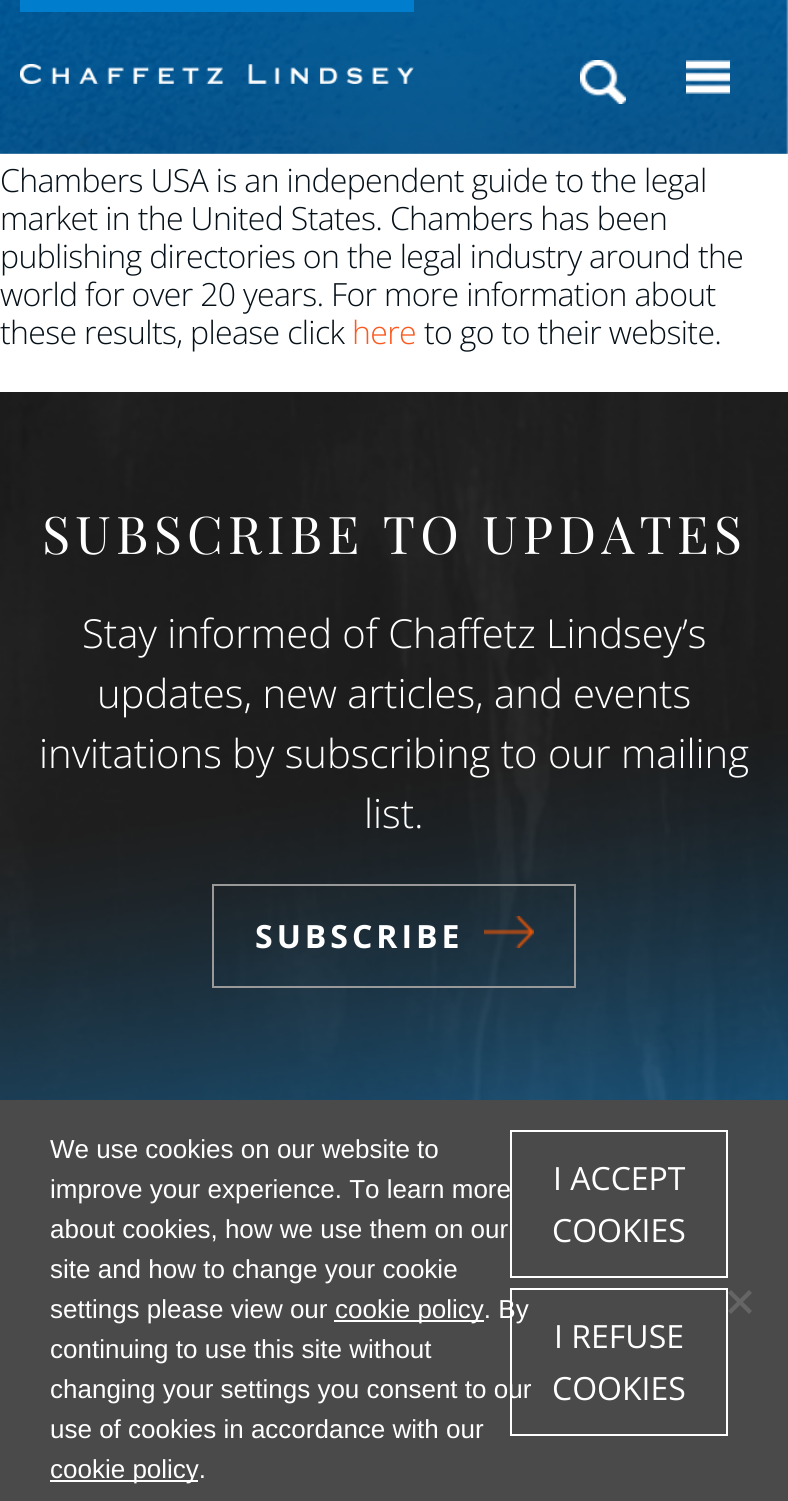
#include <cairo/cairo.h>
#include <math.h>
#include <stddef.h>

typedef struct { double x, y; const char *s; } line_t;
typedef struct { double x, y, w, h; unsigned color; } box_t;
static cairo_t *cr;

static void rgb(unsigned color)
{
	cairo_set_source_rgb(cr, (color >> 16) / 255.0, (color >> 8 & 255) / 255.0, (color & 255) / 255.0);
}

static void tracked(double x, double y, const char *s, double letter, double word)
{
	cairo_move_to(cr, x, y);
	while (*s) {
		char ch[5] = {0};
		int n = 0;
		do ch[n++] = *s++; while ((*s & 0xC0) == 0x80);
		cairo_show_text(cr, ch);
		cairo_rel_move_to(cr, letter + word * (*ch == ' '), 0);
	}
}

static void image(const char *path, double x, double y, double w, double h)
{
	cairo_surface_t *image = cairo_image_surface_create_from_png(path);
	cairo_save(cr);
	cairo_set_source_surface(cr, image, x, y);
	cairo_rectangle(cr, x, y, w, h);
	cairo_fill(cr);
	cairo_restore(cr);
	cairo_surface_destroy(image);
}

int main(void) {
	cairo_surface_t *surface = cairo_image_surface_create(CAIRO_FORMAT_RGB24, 788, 1501);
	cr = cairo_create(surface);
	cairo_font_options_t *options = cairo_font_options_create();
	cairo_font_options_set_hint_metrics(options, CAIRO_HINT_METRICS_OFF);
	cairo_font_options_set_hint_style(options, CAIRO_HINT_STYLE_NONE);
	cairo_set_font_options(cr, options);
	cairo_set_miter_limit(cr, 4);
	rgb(0xffffff);
	cairo_paint(cr);
	image("img/1.png", 0, 0, 788, 154);
	rgb(0x007dcc);
	cairo_rectangle(cr, 20, 0, 394, 12);
	cairo_fill(cr);
	image("img/2.png", 20, 64, 394, 20);
	image("img/3.png", 580, 60, 46, 44);
	image("img/4.png", 686, 60, 44, 34);
	image("img/5.png", 0, 392, 788, 708);
	cairo_rectangle(cr, 213, 885, 362, 102);
	rgb(0x999999);
	cairo_stroke(cr);
	image("img/6.png", 484, 916, 50, 32);
	{
		static const box_t items[] = {
			{0, 1100, 788, 401, 0x4a4a4a},
			{334, 1320, 150, 2, 0xffffff},
			{50, 1480, 148, 2, 0xffffff},
		};
		for (size_t i = 0; i < sizeof items / sizeof *items; i++) {
			rgb(items[i].color);
			cairo_rectangle(cr, items[i].x, items[i].y, items[i].w, items[i].h);
			cairo_fill(cr);
		}
	}
	cairo_rectangle(cr, 511, 1131, 216, 146);
	cairo_stroke(cr);
	cairo_rectangle(cr, 511, 1289, 216, 146);
	cairo_stroke(cr);
	rgb(0x656565);
	cairo_new_path(cr);
	cairo_move_to(cr, 749, 1290);
	cairo_line_to(cr, 752, 1293);
	cairo_line_to(cr, 731, 1314);
	cairo_line_to(cr, 728, 1311);
	cairo_close_path(cr);
	cairo_fill(cr);
	cairo_new_path(cr);
	cairo_move_to(cr, 728, 1293);
	cairo_line_to(cr, 731, 1290);
	cairo_line_to(cr, 752, 1311);
	cairo_line_to(cr, 749, 1314);
	cairo_close_path(cr);
	cairo_fill(cr);
	cairo_select_font_face(cr, "Open Sans Light", CAIRO_FONT_SLANT_NORMAL, CAIRO_FONT_WEIGHT_NORMAL);
	cairo_set_font_size(cr, 32);
	rgb(0x051018);
	{
		static const line_t items[] = {
			{0, 192, "Chambers USA is an independent guide to the legal"},
			{0, 230, "market in the United States. Chambers has been"},
			{0, 268, "publishing directories on the legal industry around the"},
			{0, 306, "world for over 20 years. For more information about"},
			{0, 344, "these results, please click"},
		};
		for (size_t i = 0; i < sizeof items / sizeof *items; i++) {
			tracked(items[i].x, items[i].y, items[i].s, -0.65, 0);
		}
	}
	rgb(0xfc591f);
	tracked(352, 344, "here", -0.65, 0);
	rgb(0x051018);
	tracked(424, 344, "to go to their website.", -0.65, 0);
	cairo_select_font_face(cr, "Playfair Display", CAIRO_FONT_SLANT_NORMAL, CAIRO_FONT_WEIGHT_NORMAL);
	cairo_set_font_size(cr, 52);
	rgb(0xffffff);
	tracked(42, 554, "SUBSCRIBE TO UPDATES", 5.25, 0);
	cairo_select_font_face(cr, "Open Sans Light", CAIRO_FONT_SLANT_NORMAL, CAIRO_FONT_WEIGHT_NORMAL);
	cairo_set_font_size(cr, 40);
	{
		static const line_t items[] = {
			{82, 648, "Stay informed of Chaffetz Lindsey’s"},
			{97, 708, "updates, new articles, and events"},
			{39, 768, "invitations by subscribing to our mailing"},
			{364, 828, "list."},
		};
		for (size_t i = 0; i < sizeof items / sizeof *items; i++) {
			cairo_move_to(cr, items[i].x, items[i].y);
			cairo_show_text(cr, items[i].s);
		}
	}
	cairo_select_font_face(cr, "Open Sans", CAIRO_FONT_SLANT_NORMAL, CAIRO_FONT_WEIGHT_BOLD);
	cairo_set_font_size(cr, 32);
	tracked(255, 948, "SUBSCRIBE", 4, 0);
	cairo_select_font_face(cr, "Liberation Sans", CAIRO_FONT_SLANT_NORMAL, CAIRO_FONT_WEIGHT_NORMAL);
	cairo_set_font_size(cr, 26);
	{
		static const line_t items[] = {
			{50, 1158, "We use cookies on our website to"},
			{50, 1198, "improve your experience. To learn more"},
			{50, 1238, "about cookies, how we use them on our"},
			{50, 1278, "site and how to change your cookie"},
			{50, 1318, "settings please view our"},
			{335, 1318, "cookie policy. By"},
			{50, 1358, "continuing to use this site without"},
			{50, 1398, "changing your settings you consent to our"},
			{50, 1438, "use of cookies in accordance with our"},
			{50, 1478, "cookie policy."},
		};
		for (size_t i = 0; i < sizeof items / sizeof *items; i++) {
			cairo_move_to(cr, items[i].x, items[i].y);
			cairo_show_text(cr, items[i].s);
		}
	}
	cairo_select_font_face(cr, "Open Sans", CAIRO_FONT_SLANT_NORMAL, CAIRO_FONT_WEIGHT_NORMAL);
	cairo_set_font_size(cr, 32);
	{
		static const line_t items[] = {
			{553, 1190, "I ACCEPT"},
			{552, 1242, "COOKIES"},
			{554, 1348, "I REFUSE"},
			{552, 1400, "COOKIES"},
		};
		for (size_t i = 0; i < sizeof items / sizeof *items; i++) {
			cairo_move_to(cr, items[i].x, items[i].y);
			cairo_show_text(cr, items[i].s);
		}
	}
	cairo_surface_write_to_png(surface, "page.png");
	cairo_font_options_destroy(options);
	cairo_destroy(cr);
	cairo_surface_destroy(surface);
	return 0;
}
